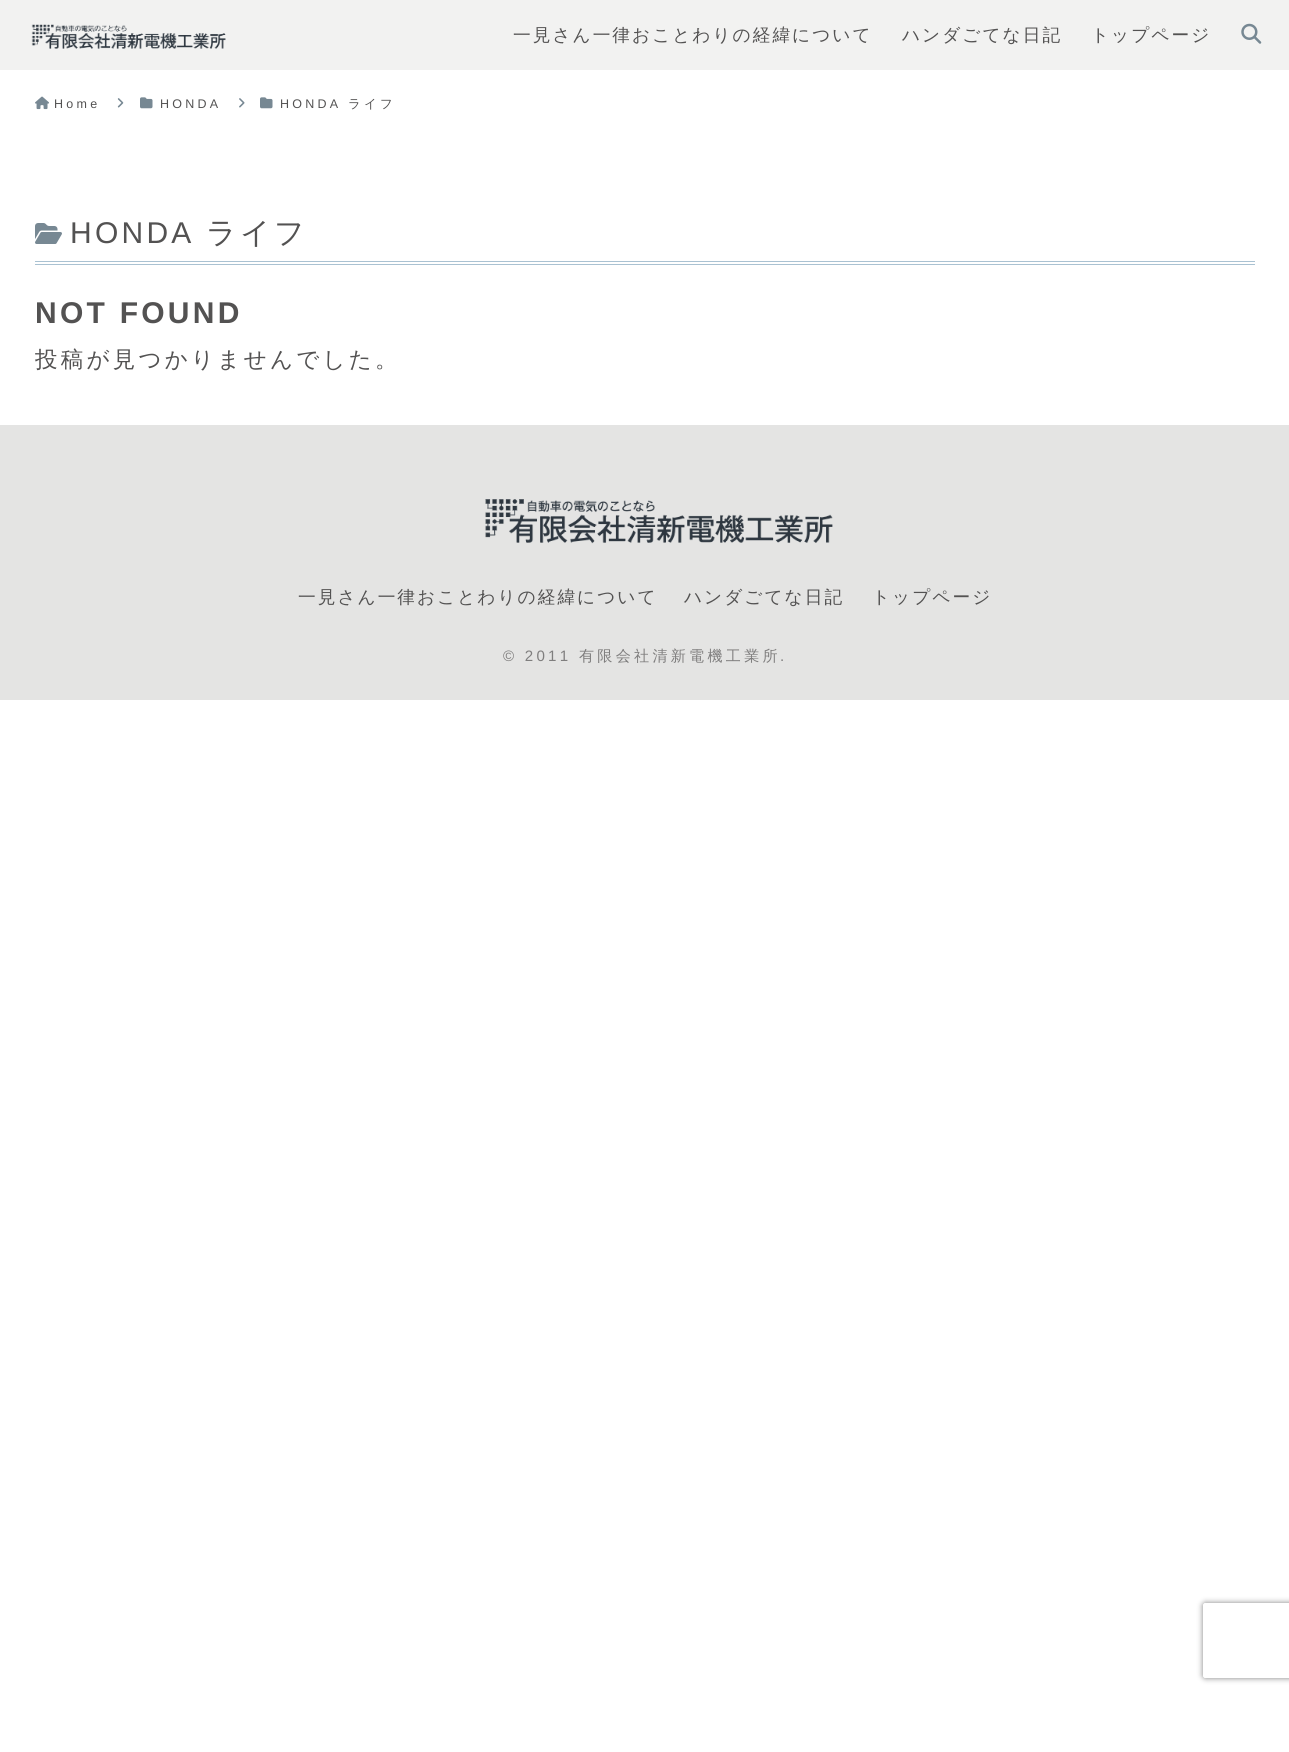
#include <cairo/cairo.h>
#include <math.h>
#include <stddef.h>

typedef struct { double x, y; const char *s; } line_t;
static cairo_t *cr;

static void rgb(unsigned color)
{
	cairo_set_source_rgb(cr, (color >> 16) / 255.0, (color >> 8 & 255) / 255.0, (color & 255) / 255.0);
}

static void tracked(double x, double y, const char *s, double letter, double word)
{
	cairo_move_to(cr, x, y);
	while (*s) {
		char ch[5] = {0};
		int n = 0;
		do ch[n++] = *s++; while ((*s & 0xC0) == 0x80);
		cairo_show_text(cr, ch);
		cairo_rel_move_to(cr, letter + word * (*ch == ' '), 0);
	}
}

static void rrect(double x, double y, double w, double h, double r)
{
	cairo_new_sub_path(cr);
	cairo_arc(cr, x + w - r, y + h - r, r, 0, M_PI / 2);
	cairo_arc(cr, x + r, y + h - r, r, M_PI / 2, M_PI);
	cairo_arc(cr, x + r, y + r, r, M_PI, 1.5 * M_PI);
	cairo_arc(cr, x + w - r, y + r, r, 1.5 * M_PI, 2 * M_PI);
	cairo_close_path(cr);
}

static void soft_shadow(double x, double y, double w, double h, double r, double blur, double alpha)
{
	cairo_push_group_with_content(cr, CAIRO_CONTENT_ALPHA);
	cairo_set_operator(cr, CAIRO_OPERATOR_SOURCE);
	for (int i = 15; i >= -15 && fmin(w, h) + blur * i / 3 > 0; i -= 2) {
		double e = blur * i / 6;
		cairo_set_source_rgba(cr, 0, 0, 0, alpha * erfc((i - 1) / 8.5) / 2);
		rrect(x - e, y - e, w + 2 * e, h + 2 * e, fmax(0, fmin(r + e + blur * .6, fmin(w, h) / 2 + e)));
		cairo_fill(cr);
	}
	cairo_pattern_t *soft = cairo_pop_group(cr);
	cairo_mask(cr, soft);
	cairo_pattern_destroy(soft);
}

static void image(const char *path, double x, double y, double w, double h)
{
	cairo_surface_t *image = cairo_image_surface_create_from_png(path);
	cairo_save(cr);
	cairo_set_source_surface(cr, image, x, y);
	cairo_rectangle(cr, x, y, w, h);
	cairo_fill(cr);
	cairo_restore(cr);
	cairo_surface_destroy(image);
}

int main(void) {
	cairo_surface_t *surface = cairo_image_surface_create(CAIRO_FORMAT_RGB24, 1289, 1752);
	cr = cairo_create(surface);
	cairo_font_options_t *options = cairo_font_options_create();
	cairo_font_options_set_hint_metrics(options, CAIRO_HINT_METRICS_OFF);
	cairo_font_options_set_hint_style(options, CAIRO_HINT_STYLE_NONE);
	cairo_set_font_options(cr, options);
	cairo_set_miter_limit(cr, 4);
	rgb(0xffffff);
	cairo_paint(cr);
	rgb(0xf2f2f1);
	cairo_rectangle(cr, 0, 0, 1289, 70);
	cairo_fill(cr);
	image("img/1.png", 31, 24, 195, 25);
	image("img/2.png", 1241, 23, 21, 21);
	image("img/3.png", 35, 96, 14, 14);
	image("img/4.png", 117, 98, 7, 10);
	image("img/5.png", 140, 97, 13, 12);
	image("img/6.png", 239, 98, 6, 10);
	image("img/5.png", 260, 97, 13, 12);
	rgb(0xaac2d2);
	cairo_rectangle(cr, 35, 261, 1220, 1);
	cairo_fill(cr);
	cairo_rectangle(cr, 35, 264, 1220, 1);
	cairo_fill(cr);
	image("img/7.png", 35, 223, 27, 21);
	rgb(0xe4e4e3);
	cairo_rectangle(cr, 0, 425, 1289, 275);
	cairo_fill(cr);
	image("img/8.png", 485, 499, 348, 45);
	cairo_save(cr);
	cairo_set_fill_rule(cr, CAIRO_FILL_RULE_EVEN_ODD);
	cairo_new_path(cr);
	cairo_move_to(cr, 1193, 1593);
	cairo_line_to(cr, 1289, 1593);
	cairo_line_to(cr, 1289, 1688);
	cairo_line_to(cr, 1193, 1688);
	cairo_close_path(cr);
	cairo_move_to(cr, 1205.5, 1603);
	cairo_line_to(cr, 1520.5, 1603);
	cairo_curve_to(cr, 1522, 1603, 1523, 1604, 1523, 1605.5);
	cairo_line_to(cr, 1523, 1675.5);
	cairo_curve_to(cr, 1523, 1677, 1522, 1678, 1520.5, 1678);
	cairo_line_to(cr, 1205.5, 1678);
	cairo_curve_to(cr, 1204, 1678, 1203, 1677, 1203, 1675.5);
	cairo_line_to(cr, 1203, 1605.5);
	cairo_curve_to(cr, 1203, 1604, 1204, 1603, 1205.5, 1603);
	cairo_close_path(cr);
	cairo_clip(cr);
	rgb(0x808080);
	soft_shadow(1203, 1603, 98, 75, 2.5, 3, 1);
	cairo_restore(cr);
	cairo_select_font_face(cr, "WenQuanYi Zen Hei Medium", CAIRO_FONT_SLANT_NORMAL, CAIRO_FONT_WEIGHT_NORMAL);
	cairo_set_font_size(cr, 17.7);
	rgb(0x535252);
	{
		static const line_t items[] = {
			{513, 41, "一見さん一律おことわりの経緯について"},
			{902, 41, "ハンダごてな日記"},
			{1091, 41, "トップページ"},
		};
		for (size_t i = 0; i < sizeof items / sizeof *items; i++) {
			tracked(items[i].x, items[i].y, items[i].s, 2, 0);
		}
	}
	cairo_select_font_face(cr, "Liberation Sans", CAIRO_FONT_SLANT_NORMAL, CAIRO_FONT_WEIGHT_NORMAL);
	cairo_set_font_size(cr, 12.5);
	{
		static const line_t items[] = {
			{54, 108, "Home"},
			{160, 108, "HONDA"},
			{280, 108, "HONDA"},
		};
		for (size_t i = 0; i < sizeof items / sizeof *items; i++) {
			tracked(items[i].x, items[i].y, items[i].s, 3.25, 0);
		}
	}
	cairo_select_font_face(cr, "WenQuanYi Zen Hei Medium", CAIRO_FONT_SLANT_NORMAL, CAIRO_FONT_WEIGHT_NORMAL);
	tracked(348, 108, "ライフ", 3.25, 0);
	cairo_select_font_face(cr, "Liberation Sans", CAIRO_FONT_SLANT_NORMAL, CAIRO_FONT_WEIGHT_NORMAL);
	cairo_set_font_size(cr, 30);
	tracked(70, 243, "HONDA", 3.25, 0);
	cairo_select_font_face(cr, "WenQuanYi Zen Hei Medium", CAIRO_FONT_SLANT_NORMAL, CAIRO_FONT_WEIGHT_NORMAL);
	tracked(206, 243, "ライフ", 3.25, 0);
	cairo_select_font_face(cr, "Liberation Sans", CAIRO_FONT_SLANT_NORMAL, CAIRO_FONT_WEIGHT_BOLD);
	tracked(35, 323, "NOT FOUND", 3.25, 0);
	cairo_select_font_face(cr, "WenQuanYi Zen Hei Medium", CAIRO_FONT_SLANT_NORMAL, CAIRO_FONT_WEIGHT_NORMAL);
	cairo_set_font_size(cr, 22.5);
	tracked(35, 367, "投稿が見つかりませんでした。", 3.25, 0);
	cairo_set_font_size(cr, 17.7);
	{
		static const line_t items[] = {
			{298, 603, "一見さん一律おことわりの経緯について"},
			{684, 603, "ハンダごてな日記"},
			{872, 603, "トップページ"},
		};
		for (size_t i = 0; i < sizeof items / sizeof *items; i++) {
			tracked(items[i].x, items[i].y, items[i].s, 2, 0);
		}
	}
	cairo_select_font_face(cr, "Liberation Sans", CAIRO_FONT_SLANT_NORMAL, CAIRO_FONT_WEIGHT_NORMAL);
	cairo_set_font_size(cr, 15.1);
	rgb(0x7f7e7e);
	tracked(503, 661, "© 2011", 3.25, 0);
	cairo_select_font_face(cr, "WenQuanYi Zen Hei Medium", CAIRO_FONT_SLANT_NORMAL, CAIRO_FONT_WEIGHT_NORMAL);
	tracked(579, 661, "有限会社清新電機工業所", 3.25, 0);
	cairo_select_font_face(cr, "Liberation Sans", CAIRO_FONT_SLANT_NORMAL, CAIRO_FONT_WEIGHT_NORMAL);
	tracked(780, 661, ".", 3.25, 0);
	cairo_surface_write_to_png(surface, "page.png");
	cairo_font_options_destroy(options);
	cairo_destroy(cr);
	cairo_surface_destroy(surface);
	return 0;
}
